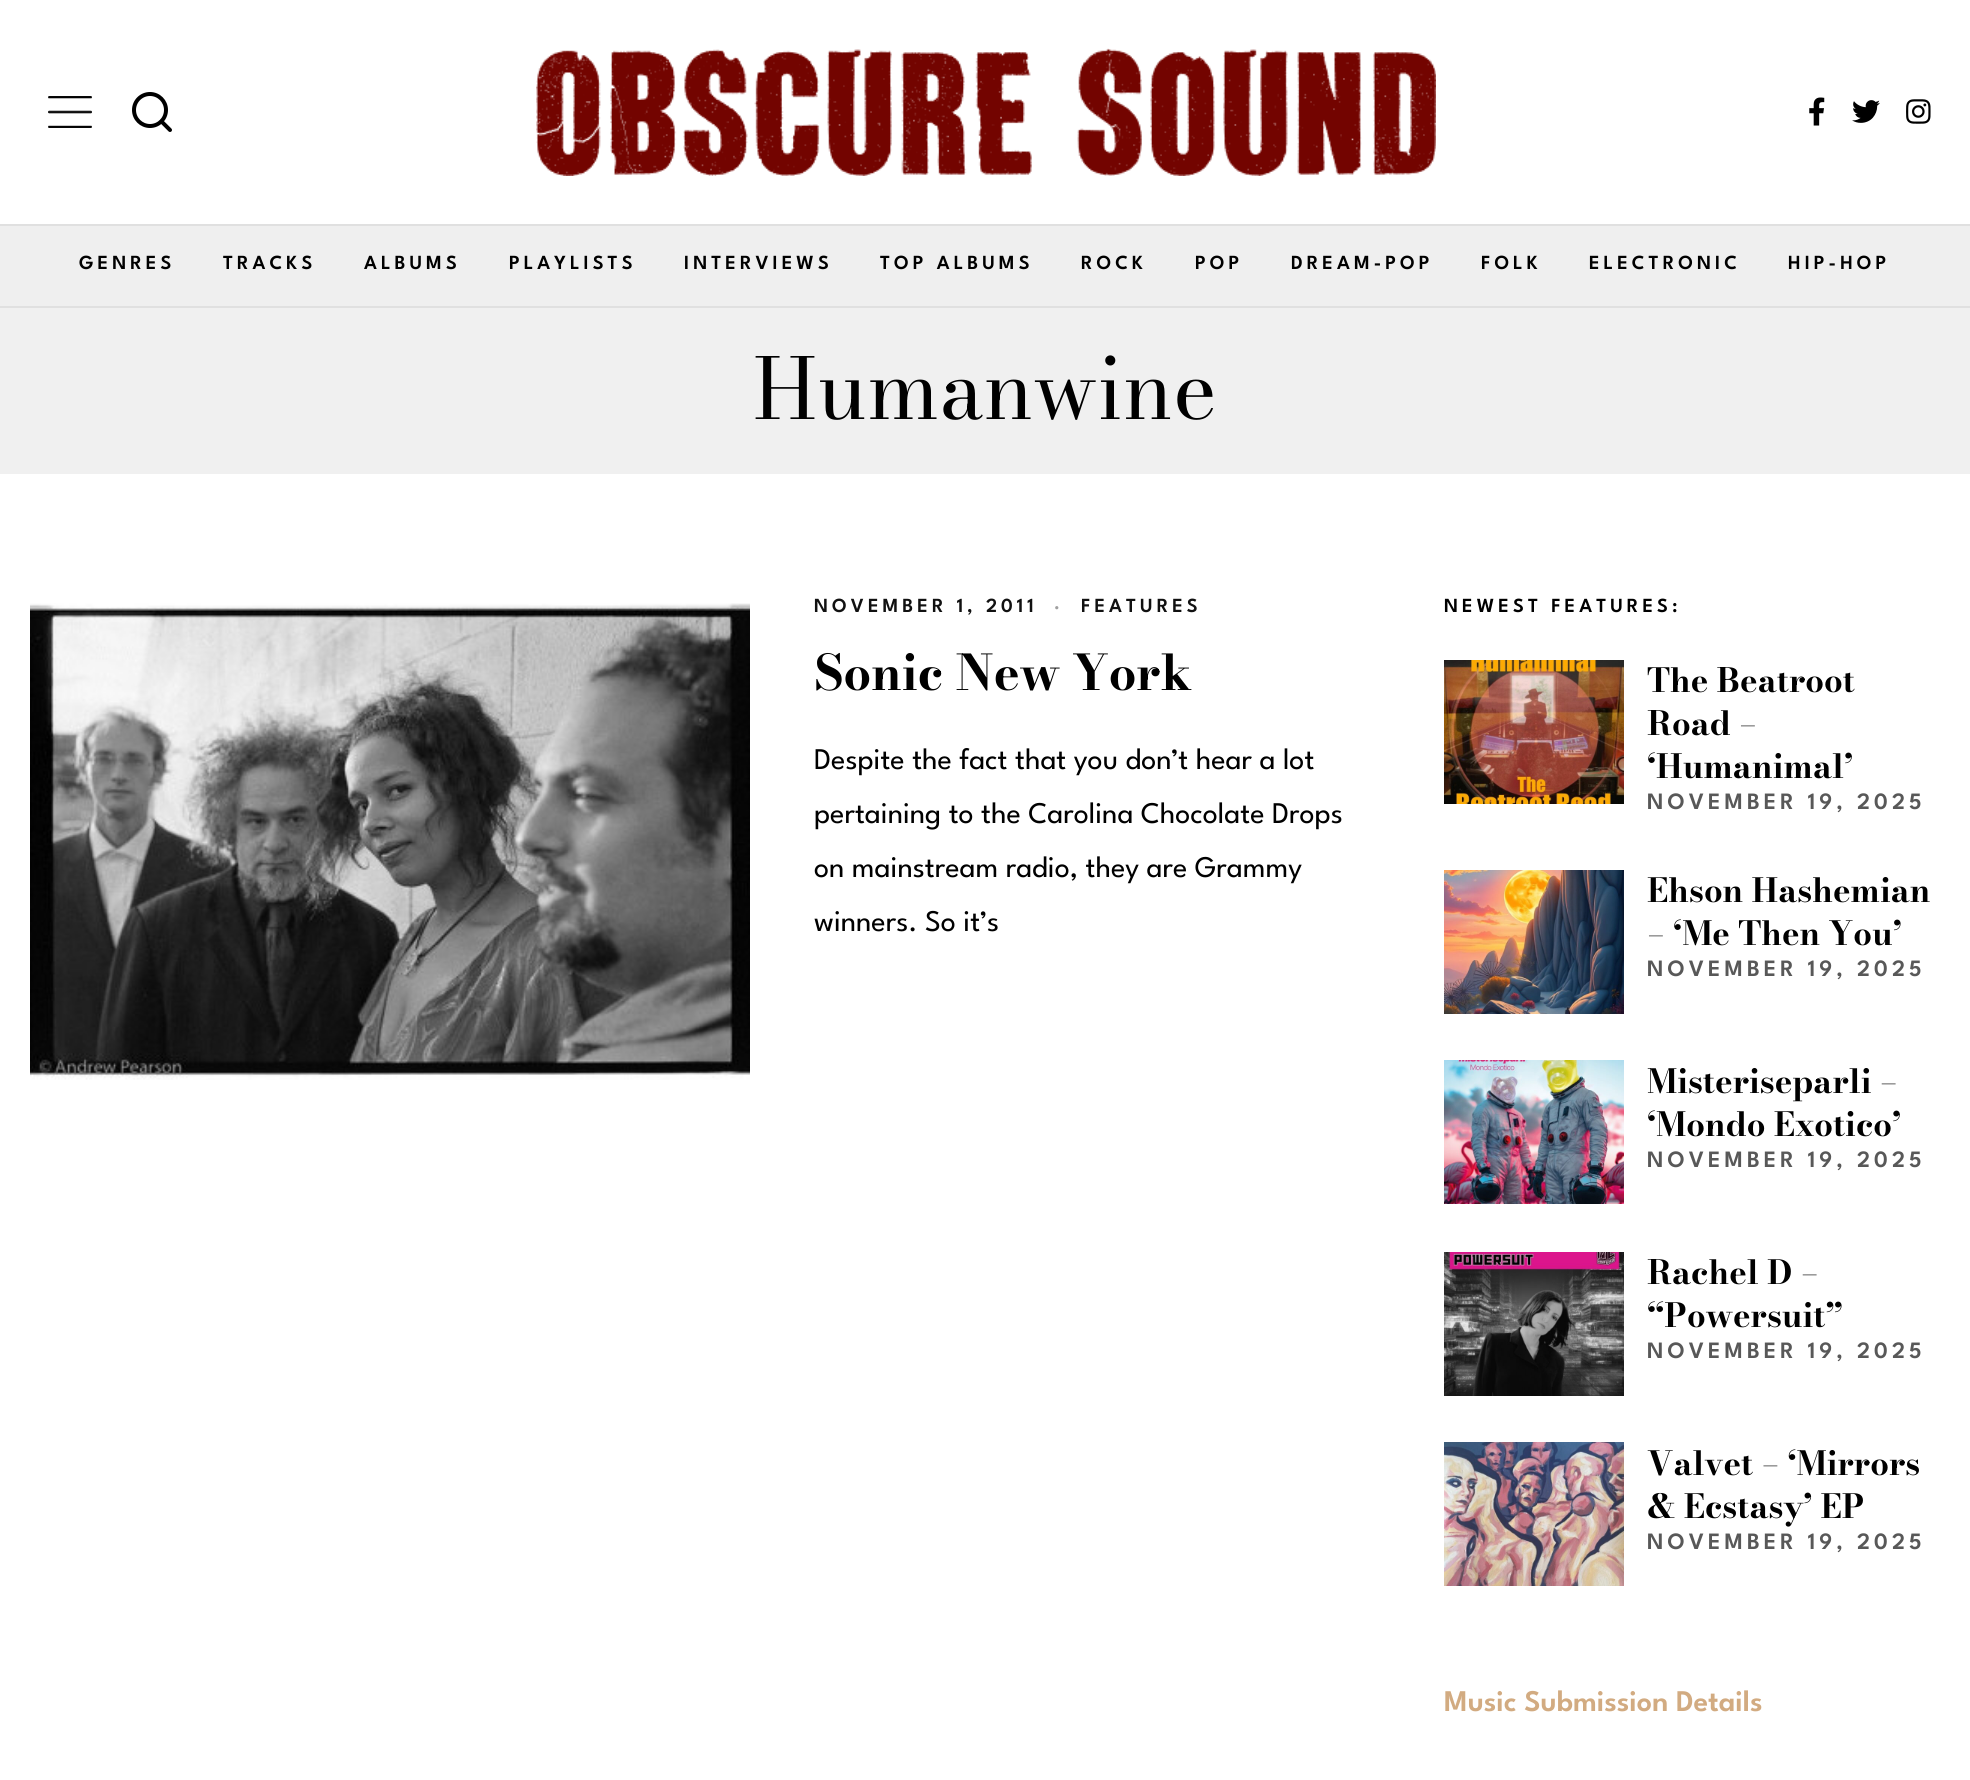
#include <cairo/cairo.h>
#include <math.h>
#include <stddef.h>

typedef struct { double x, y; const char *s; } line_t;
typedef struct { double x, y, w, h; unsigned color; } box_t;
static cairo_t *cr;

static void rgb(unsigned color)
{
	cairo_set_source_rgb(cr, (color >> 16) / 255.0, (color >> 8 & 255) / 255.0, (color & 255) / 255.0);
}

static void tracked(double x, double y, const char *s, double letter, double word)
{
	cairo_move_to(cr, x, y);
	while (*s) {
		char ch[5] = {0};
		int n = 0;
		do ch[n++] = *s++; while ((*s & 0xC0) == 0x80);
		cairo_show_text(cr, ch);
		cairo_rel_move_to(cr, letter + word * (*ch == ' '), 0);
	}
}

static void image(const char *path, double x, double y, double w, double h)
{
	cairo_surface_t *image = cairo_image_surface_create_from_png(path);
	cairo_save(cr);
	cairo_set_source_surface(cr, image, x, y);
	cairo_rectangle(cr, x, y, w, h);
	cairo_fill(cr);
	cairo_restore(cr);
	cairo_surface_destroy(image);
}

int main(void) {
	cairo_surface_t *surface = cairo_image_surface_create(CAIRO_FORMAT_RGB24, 1970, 1780);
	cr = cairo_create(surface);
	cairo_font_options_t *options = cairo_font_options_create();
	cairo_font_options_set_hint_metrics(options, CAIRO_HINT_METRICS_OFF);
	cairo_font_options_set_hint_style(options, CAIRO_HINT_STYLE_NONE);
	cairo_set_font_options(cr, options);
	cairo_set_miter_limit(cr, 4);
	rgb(0xffffff);
	cairo_paint(cr);
	image("img/1.png", 48, 96, 44, 32);
	cairo_arc(cr, 150, 110, 16, 0, 2 * M_PI);
	rgb(0x000000);
	cairo_set_line_width(cr, 4);
	cairo_stroke(cr);
	cairo_new_path(cr);
	cairo_move_to(cr, 170, 130);
	cairo_line_to(cr, 161.5, 121.5);
	cairo_set_line_cap(cr, CAIRO_LINE_CAP_ROUND);
	cairo_set_line_join(cr, CAIRO_LINE_JOIN_ROUND);
	cairo_stroke(cr);
	image("img/2.png", 536, 48, 900, 128);
	image("img/3.png", 1809, 97, 16, 29);
	image("img/4.png", 1852, 100, 28, 23);
	image("img/5.png", 1906, 99, 25, 25);
	{
		static const box_t items[] = {
			{0, 226, 1970, 80, 0xefefef},
			{0, 224, 1970, 2, 0xe0e0e0},
			{0, 306, 1970, 2, 0xe0e0e0},
			{0, 308, 1970, 166, 0xf0f0f0},
		};
		for (size_t i = 0; i < sizeof items / sizeof *items; i++) {
			rgb(items[i].color);
			cairo_rectangle(cr, items[i].x, items[i].y, items[i].w, items[i].h);
			cairo_fill(cr);
		}
	}
	image("img/6.png", 30, 603, 720, 477);
	image("img/7.png", 1444, 660, 180, 144);
	image("img/8.png", 1444, 870, 180, 144);
	image("img/9.png", 1444, 1060, 180, 144);
	image("img/10.png", 1444, 1252, 180, 144);
	image("img/11.png", 1444, 1442, 180, 144);
	cairo_select_font_face(cr, "League Spartan Thin", CAIRO_FONT_SLANT_NORMAL, CAIRO_FONT_WEIGHT_NORMAL);
	cairo_set_font_size(cr, 20);
	rgb(0x000000);
	{
		static const line_t items[] = {
			{79, 269, "GENRES"},
			{223, 269, "TRACKS"},
			{364, 269, "ALBUMS"},
			{509, 269, "PLAYLISTS"},
			{684, 269, "INTERVIEWS"},
			{880, 269, "TOP ALBUMS"},
			{1081, 269, "ROCK"},
			{1195, 269, "POP"},
			{1291, 269, "DREAM-POP"},
			{1481, 269, "FOLK"},
			{1589, 269, "ELECTRONIC"},
			{1788, 269, "HIP-HOP"},
		};
		for (size_t i = 0; i < sizeof items / sizeof *items; i++) {
			tracked(items[i].x, items[i].y, items[i].s, 4, 0);
		}
	}
	cairo_select_font_face(cr, "Bodoni Moda", CAIRO_FONT_SLANT_NORMAL, CAIRO_FONT_WEIGHT_NORMAL);
	cairo_set_font_size(cr, 84);
	cairo_move_to(cr, 753, 419);
	cairo_show_text(cr, "Humanwine");
	cairo_select_font_face(cr, "League Spartan Thin", CAIRO_FONT_SLANT_NORMAL, CAIRO_FONT_WEIGHT_NORMAL);
	cairo_set_font_size(cr, 20);
	rgb(0x111111);
	tracked(814, 612, "NOVEMBER 1, 2011", 4, 0);
	rgb(0xa0a0a0);
	tracked(1054, 612, "·", 4, 0);
	rgb(0x111111);
	tracked(1081, 612, "FEATURES", 4, 0);
	cairo_select_font_face(cr, "Bodoni Moda", CAIRO_FONT_SLANT_NORMAL, CAIRO_FONT_WEIGHT_BOLD);
	cairo_set_font_size(cr, 48.75);
	rgb(0x000000);
	cairo_move_to(cr, 814, 690);
	cairo_show_text(cr, "Sonic New York");
	cairo_select_font_face(cr, "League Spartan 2 Thin", CAIRO_FONT_SLANT_NORMAL, CAIRO_FONT_WEIGHT_NORMAL);
	cairo_set_font_size(cr, 30);
	{
		static const line_t items[] = {
			{814, 769, "Despite the fact that you don’t hear a lot"},
			{814, 823, "pertaining to the Carolina Chocolate Drops"},
			{814, 877, "on mainstream radio, they are Grammy"},
			{814, 931, "winners. So it’s"},
		};
		for (size_t i = 0; i < sizeof items / sizeof *items; i++) {
			cairo_move_to(cr, items[i].x, items[i].y);
			cairo_show_text(cr, items[i].s);
		}
	}
	cairo_select_font_face(cr, "League Spartan Thin", CAIRO_FONT_SLANT_NORMAL, CAIRO_FONT_WEIGHT_NORMAL);
	cairo_set_font_size(cr, 20);
	tracked(1444, 612, "NEWEST FEATURES:", 4, 0);
	cairo_select_font_face(cr, "Bodoni Moda", CAIRO_FONT_SLANT_NORMAL, CAIRO_FONT_WEIGHT_BOLD);
	cairo_set_font_size(cr, 33);
	{
		static const line_t items[] = {
			{1647, 692, "The Beatroot"},
			{1647, 735, "Road –"},
			{1647, 778, "‘Humanimal’"},
		};
		for (size_t i = 0; i < sizeof items / sizeof *items; i++) {
			cairo_move_to(cr, items[i].x, items[i].y);
			cairo_show_text(cr, items[i].s);
		}
	}
	cairo_select_font_face(cr, "League Spartan Thin", CAIRO_FONT_SLANT_NORMAL, CAIRO_FONT_WEIGHT_NORMAL);
	cairo_set_font_size(cr, 23.4);
	rgb(0x585858);
	tracked(1647, 809, "NOVEMBER 19, 2025", 4, 0);
	cairo_select_font_face(cr, "Bodoni Moda", CAIRO_FONT_SLANT_NORMAL, CAIRO_FONT_WEIGHT_BOLD);
	cairo_set_font_size(cr, 33);
	rgb(0x000000);
	cairo_move_to(cr, 1647, 902);
	cairo_show_text(cr, "Ehson Hashemian");
	cairo_move_to(cr, 1647, 945);
	cairo_show_text(cr, "– ‘Me Then You’");
	cairo_select_font_face(cr, "League Spartan Thin", CAIRO_FONT_SLANT_NORMAL, CAIRO_FONT_WEIGHT_NORMAL);
	cairo_set_font_size(cr, 23.4);
	rgb(0x585858);
	tracked(1647, 976, "NOVEMBER 19, 2025", 4, 0);
	cairo_select_font_face(cr, "Bodoni Moda", CAIRO_FONT_SLANT_NORMAL, CAIRO_FONT_WEIGHT_BOLD);
	cairo_set_font_size(cr, 33);
	rgb(0x000000);
	cairo_move_to(cr, 1647, 1093);
	cairo_show_text(cr, "Misteriseparli –");
	cairo_move_to(cr, 1647, 1136);
	cairo_show_text(cr, "‘Mondo Exotico’");
	cairo_select_font_face(cr, "League Spartan Thin", CAIRO_FONT_SLANT_NORMAL, CAIRO_FONT_WEIGHT_NORMAL);
	cairo_set_font_size(cr, 23.4);
	rgb(0x585858);
	tracked(1647, 1167, "NOVEMBER 19, 2025", 4, 0);
	cairo_select_font_face(cr, "Bodoni Moda", CAIRO_FONT_SLANT_NORMAL, CAIRO_FONT_WEIGHT_BOLD);
	cairo_set_font_size(cr, 33);
	rgb(0x000000);
	cairo_move_to(cr, 1647, 1284);
	cairo_show_text(cr, "Rachel D –");
	cairo_move_to(cr, 1647, 1327);
	cairo_show_text(cr, "“Powersuit”");
	cairo_select_font_face(cr, "League Spartan Thin", CAIRO_FONT_SLANT_NORMAL, CAIRO_FONT_WEIGHT_NORMAL);
	cairo_set_font_size(cr, 23.4);
	rgb(0x585858);
	tracked(1647, 1358, "NOVEMBER 19, 2025", 4, 0);
	cairo_select_font_face(cr, "Bodoni Moda", CAIRO_FONT_SLANT_NORMAL, CAIRO_FONT_WEIGHT_BOLD);
	cairo_set_font_size(cr, 33);
	rgb(0x000000);
	cairo_move_to(cr, 1647, 1475);
	cairo_show_text(cr, "Valvet – ‘Mirrors");
	cairo_move_to(cr, 1647, 1518);
	cairo_show_text(cr, "& Ecstasy’ EP");
	cairo_select_font_face(cr, "League Spartan Thin", CAIRO_FONT_SLANT_NORMAL, CAIRO_FONT_WEIGHT_NORMAL);
	cairo_set_font_size(cr, 23.4);
	rgb(0x585858);
	tracked(1647, 1549, "NOVEMBER 19, 2025", 4, 0);
	cairo_set_font_size(cr, 30);
	rgb(0xd2ab81);
	cairo_move_to(cr, 1444, 1711);
	cairo_show_text(cr, "Music Submission Details");
	cairo_surface_write_to_png(surface, "page.png");
	cairo_font_options_destroy(options);
	cairo_destroy(cr);
	cairo_surface_destroy(surface);
	return 0;
}
